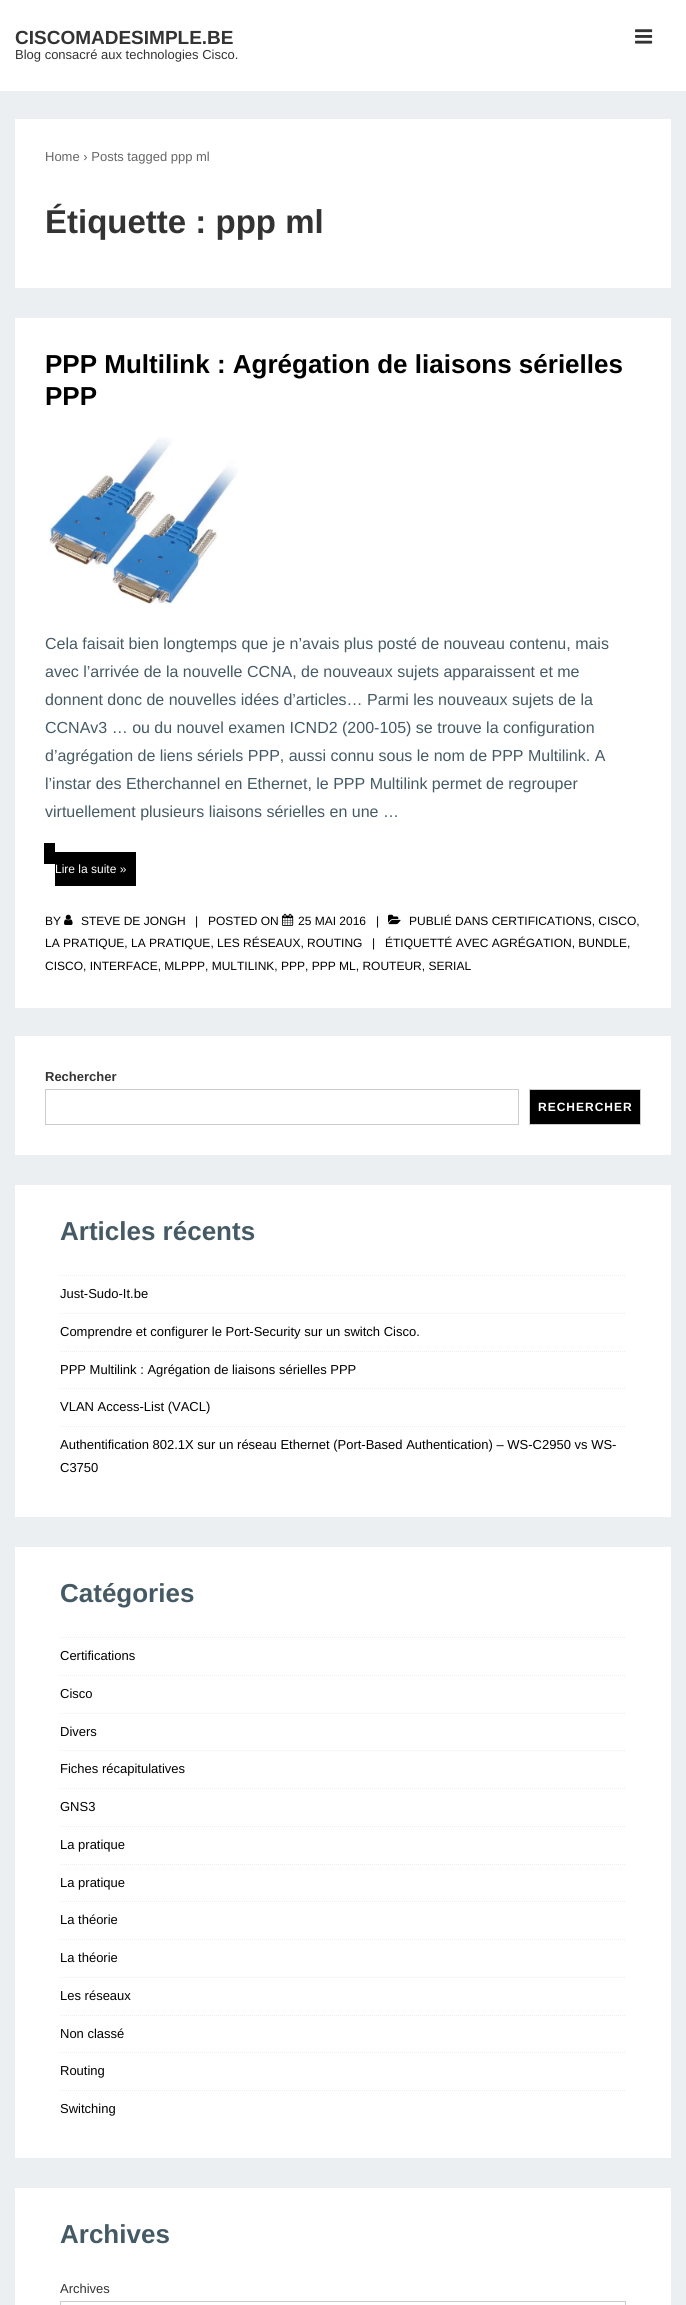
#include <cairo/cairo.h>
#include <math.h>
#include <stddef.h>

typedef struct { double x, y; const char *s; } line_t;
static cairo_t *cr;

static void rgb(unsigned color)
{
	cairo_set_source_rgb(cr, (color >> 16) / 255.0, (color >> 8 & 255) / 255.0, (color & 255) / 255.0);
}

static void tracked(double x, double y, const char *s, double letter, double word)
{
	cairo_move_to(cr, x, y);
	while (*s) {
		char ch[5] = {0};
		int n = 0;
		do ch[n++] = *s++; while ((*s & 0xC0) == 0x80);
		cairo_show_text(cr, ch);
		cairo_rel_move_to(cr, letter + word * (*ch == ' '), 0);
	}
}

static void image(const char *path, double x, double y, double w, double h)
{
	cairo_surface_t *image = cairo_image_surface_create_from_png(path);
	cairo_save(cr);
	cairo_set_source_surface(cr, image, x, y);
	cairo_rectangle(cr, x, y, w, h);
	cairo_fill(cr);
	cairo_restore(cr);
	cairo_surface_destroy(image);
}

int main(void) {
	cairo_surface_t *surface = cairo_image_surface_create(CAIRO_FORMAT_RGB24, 686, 2305);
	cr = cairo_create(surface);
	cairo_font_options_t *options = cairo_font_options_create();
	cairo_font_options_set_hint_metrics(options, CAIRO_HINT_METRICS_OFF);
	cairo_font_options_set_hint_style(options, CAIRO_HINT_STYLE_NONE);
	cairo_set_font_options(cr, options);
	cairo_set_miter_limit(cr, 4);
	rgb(0xeceff1);
	cairo_paint(cr);
	rgb(0xffffff);
	cairo_rectangle(cr, 0, 0, 686, 91);
	cairo_fill(cr);
	image("img/1.png", 635, 29, 18, 15);
	cairo_rectangle(cr, 15, 119, 656, 169);
	cairo_fill(cr);
	cairo_rectangle(cr, 15, 318, 656, 690);
	cairo_fill(cr);
	image("img/2.png", 48, 437, 190, 167);
	rgb(0x000000);
	cairo_rectangle(cr, 44, 843, 11, 21);
	cairo_fill(cr);
	cairo_rectangle(cr, 55, 852, 81, 34);
	cairo_fill(cr);
	image("img/3.png", 64, 914, 9, 11);
	image("img/4.png", 282, 913, 12, 13);
	image("img/5.png", 388, 914, 13, 11);
	rgb(0xffffff);
	cairo_rectangle(cr, 15, 1036, 656, 119);
	cairo_fill(cr);
	cairo_rectangle(cr, 45.5, 1089.5, 473, 35);
	rgb(0xcccccc);
	cairo_set_line_width(cr, 1);
	cairo_stroke(cr);
	rgb(0x000000);
	cairo_rectangle(cr, 529.5, 1089.5, 111, 35);
	cairo_fill_preserve(cr);
	rgb(0xcccccc);
	cairo_stroke(cr);
	rgb(0xffffff);
	cairo_rectangle(cr, 15, 1185, 656, 332);
	cairo_fill(cr);
	cairo_new_path(cr);
	cairo_move_to(cr, 60, 1275.5);
	cairo_line_to(cr, 626, 1275.5);
	rgb(0xeeeeee);
	cairo_set_dash(cr, (double[]){1, 1}, 2, 0);
	cairo_stroke(cr);
	cairo_new_path(cr);
	cairo_move_to(cr, 60, 1313.5);
	cairo_line_to(cr, 626, 1313.5);
	cairo_stroke(cr);
	cairo_new_path(cr);
	cairo_move_to(cr, 60, 1351.5);
	cairo_line_to(cr, 626, 1351.5);
	cairo_stroke(cr);
	cairo_new_path(cr);
	cairo_move_to(cr, 60, 1388.5);
	cairo_line_to(cr, 626, 1388.5);
	cairo_stroke(cr);
	cairo_new_path(cr);
	cairo_move_to(cr, 60, 1426.5);
	cairo_line_to(cr, 626, 1426.5);
	cairo_stroke(cr);
	rgb(0xffffff);
	cairo_rectangle(cr, 15, 1547, 656, 611);
	cairo_fill(cr);
	cairo_new_path(cr);
	cairo_move_to(cr, 60, 1637.5);
	cairo_line_to(cr, 626, 1637.5);
	rgb(0xeeeeee);
	cairo_stroke(cr);
	cairo_new_path(cr);
	cairo_move_to(cr, 60, 1675.5);
	cairo_line_to(cr, 626, 1675.5);
	cairo_stroke(cr);
	cairo_new_path(cr);
	cairo_move_to(cr, 60, 1713.5);
	cairo_line_to(cr, 626, 1713.5);
	cairo_stroke(cr);
	cairo_new_path(cr);
	cairo_move_to(cr, 60, 1750.5);
	cairo_line_to(cr, 626, 1750.5);
	cairo_stroke(cr);
	cairo_new_path(cr);
	cairo_move_to(cr, 60, 1788.5);
	cairo_line_to(cr, 626, 1788.5);
	cairo_stroke(cr);
	cairo_new_path(cr);
	cairo_move_to(cr, 60, 1826.5);
	cairo_line_to(cr, 626, 1826.5);
	cairo_stroke(cr);
	cairo_new_path(cr);
	cairo_move_to(cr, 60, 1864.5);
	cairo_line_to(cr, 626, 1864.5);
	cairo_stroke(cr);
	cairo_new_path(cr);
	cairo_move_to(cr, 60, 1901.5);
	cairo_line_to(cr, 626, 1901.5);
	cairo_stroke(cr);
	cairo_new_path(cr);
	cairo_move_to(cr, 60, 1939.5);
	cairo_line_to(cr, 626, 1939.5);
	cairo_stroke(cr);
	cairo_new_path(cr);
	cairo_move_to(cr, 60, 1977.5);
	cairo_line_to(cr, 626, 1977.5);
	cairo_stroke(cr);
	cairo_new_path(cr);
	cairo_move_to(cr, 60, 2015.5);
	cairo_line_to(cr, 626, 2015.5);
	cairo_stroke(cr);
	cairo_new_path(cr);
	cairo_move_to(cr, 60, 2052.5);
	cairo_line_to(cr, 626, 2052.5);
	cairo_stroke(cr);
	cairo_new_path(cr);
	cairo_move_to(cr, 60, 2090.5);
	cairo_line_to(cr, 626, 2090.5);
	cairo_stroke(cr);
	rgb(0xffffff);
	cairo_rectangle(cr, 15, 2188, 656, 117);
	cairo_fill(cr);
	cairo_rectangle(cr, 60.5, 2301.5, 565, 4);
	rgb(0xcccccc);
	cairo_set_dash(cr, NULL, 0, 0);
	cairo_stroke(cr);
	cairo_select_font_face(cr, "Liberation Sans", CAIRO_FONT_SLANT_NORMAL, CAIRO_FONT_WEIGHT_BOLD);
	cairo_set_font_size(cr, 19);
	rgb(0x333333);
	cairo_move_to(cr, 15, 44);
	cairo_show_text(cr, "CISCOMADESIMPLE.BE");
	cairo_select_font_face(cr, "Liberation Sans", CAIRO_FONT_SLANT_NORMAL, CAIRO_FONT_WEIGHT_NORMAL);
	cairo_set_font_size(cr, 13);
	cairo_move_to(cr, 15, 59);
	cairo_show_text(cr, "Blog consacré aux technologies Cisco.");
	rgb(0x666666);
	cairo_move_to(cr, 45, 161);
	cairo_show_text(cr, "Home › Posts tagged ppp ml");
	cairo_select_font_face(cr, "Liberation Sans", CAIRO_FONT_SLANT_NORMAL, CAIRO_FONT_WEIGHT_BOLD);
	cairo_set_font_size(cr, 33);
	rgb(0x333333);
	cairo_move_to(cr, 45, 233);
	cairo_show_text(cr, "Étiquette : ppp ml");
	cairo_set_font_size(cr, 26);
	rgb(0x000000);
	cairo_move_to(cr, 45, 373);
	cairo_show_text(cr, "PPP Multilink : Agrégation de liaisons sérielles");
	cairo_move_to(cr, 45, 405);
	cairo_show_text(cr, "PPP");
	cairo_select_font_face(cr, "Liberation Sans", CAIRO_FONT_SLANT_NORMAL, CAIRO_FONT_WEIGHT_NORMAL);
	cairo_set_font_size(cr, 16);
	rgb(0x455a64);
	{
		static const line_t items[] = {
			{45, 649, "Cela faisait bien longtemps que je n’avais plus posté de nouveau contenu, mais"},
			{45, 677, "avec l’arrivée de la nouvelle CCNA, de nouveaux sujets apparaissent et me"},
			{45, 705, "donnent donc de nouvelles idées d’articles… Parmi les nouveaux sujets de la"},
			{45, 733, "CCNAv3 … ou du nouvel examen ICND2 (200-105) se trouve la configuration"},
			{45, 761, "d’agrégation de liens sériels PPP, aussi connu sous le nom de PPP Multilink. A"},
			{45, 789, "l’instar des Etherchannel en Ethernet, le PPP Multilink permet de regrouper"},
			{45, 817, "virtuellement plusieurs liaisons sérielles en une …"},
		};
		for (size_t i = 0; i < sizeof items / sizeof *items; i++) {
			cairo_move_to(cr, items[i].x, items[i].y);
			cairo_show_text(cr, items[i].s);
		}
	}
	cairo_set_font_size(cr, 12);
	rgb(0xffffff);
	cairo_move_to(cr, 55, 873);
	cairo_show_text(cr, "Lire la suite »");
	rgb(0x000000);
	{
		static const line_t items[] = {
			{45, 925, "BY"},
			{81, 925, "STEVE DE JONGH"},
			{195, 925, "|"},
			{208, 925, "POSTED ON"},
			{298, 925, "25 MAI 2016"},
			{376, 925, "|"},
			{409, 925, "PUBLIÉ DANS CERTIFICATIONS, CISCO,"},
			{45, 947, "LA PRATIQUE, LA PRATIQUE, LES RÉSEAUX, ROUTING"},
			{372, 947, "|"},
			{385, 947, "ÉTIQUETTÉ AVEC AGRÉGATION, BUNDLE,"},
			{45, 970, "CISCO, INTERFACE, MLPPP, MULTILINK, PPP, PPP ML, ROUTEUR, SERIAL"},
		};
		for (size_t i = 0; i < sizeof items / sizeof *items; i++) {
			cairo_move_to(cr, items[i].x, items[i].y);
			cairo_show_text(cr, items[i].s);
		}
	}
	cairo_select_font_face(cr, "Liberation Sans", CAIRO_FONT_SLANT_NORMAL, CAIRO_FONT_WEIGHT_BOLD);
	cairo_set_font_size(cr, 13);
	rgb(0x333333);
	cairo_move_to(cr, 45, 1081);
	cairo_show_text(cr, "Rechercher");
	cairo_set_font_size(cr, 12);
	rgb(0xffffff);
	tracked(538, 1111, "RECHERCHER", 1, 0);
	cairo_set_font_size(cr, 26);
	rgb(0x455a64);
	cairo_move_to(cr, 60, 1240);
	cairo_show_text(cr, "Articles récents");
	cairo_select_font_face(cr, "Liberation Sans", CAIRO_FONT_SLANT_NORMAL, CAIRO_FONT_WEIGHT_NORMAL);
	cairo_set_font_size(cr, 13);
	rgb(0x000000);
	{
		static const line_t items[] = {
			{60, 1298, "Just-Sudo-It.be"},
			{60, 1336, "Comprendre et configurer le Port-Security sur un switch Cisco."},
			{60, 1374, "PPP Multilink : Agrégation de liaisons sérielles PPP"},
			{60, 1411, "VLAN Access-List (VACL)"},
			{60, 1449, "Authentification 802.1X sur un réseau Ethernet (Port-Based Authentication) – WS-C2950 vs WS-"},
			{60, 1472, "C3750"},
		};
		for (size_t i = 0; i < sizeof items / sizeof *items; i++) {
			cairo_move_to(cr, items[i].x, items[i].y);
			cairo_show_text(cr, items[i].s);
		}
	}
	cairo_select_font_face(cr, "Liberation Sans", CAIRO_FONT_SLANT_NORMAL, CAIRO_FONT_WEIGHT_BOLD);
	cairo_set_font_size(cr, 26);
	rgb(0x455a64);
	cairo_move_to(cr, 60, 1602);
	cairo_show_text(cr, "Catégories");
	cairo_select_font_face(cr, "Liberation Sans", CAIRO_FONT_SLANT_NORMAL, CAIRO_FONT_WEIGHT_NORMAL);
	cairo_set_font_size(cr, 13);
	rgb(0x000000);
	{
		static const line_t items[] = {
			{60, 1660, "Certifications"},
			{60, 1698, "Cisco"},
			{60, 1736, "Divers"},
			{60, 1773, "Fiches récapitulatives"},
			{60, 1811, "GNS3"},
			{60, 1849, "La pratique"},
			{60, 1887, "La pratique"},
			{60, 1924, "La théorie"},
			{60, 1962, "La théorie"},
			{60, 2000, "Les réseaux"},
			{60, 2038, "Non classé"},
			{60, 2075, "Routing"},
			{60, 2113, "Switching"},
		};
		for (size_t i = 0; i < sizeof items / sizeof *items; i++) {
			cairo_move_to(cr, items[i].x, items[i].y);
			cairo_show_text(cr, items[i].s);
		}
	}
	cairo_select_font_face(cr, "Liberation Sans", CAIRO_FONT_SLANT_NORMAL, CAIRO_FONT_WEIGHT_BOLD);
	cairo_set_font_size(cr, 26);
	rgb(0x455a64);
	cairo_move_to(cr, 60, 2243);
	cairo_show_text(cr, "Archives");
	cairo_select_font_face(cr, "Liberation Sans", CAIRO_FONT_SLANT_NORMAL, CAIRO_FONT_WEIGHT_NORMAL);
	cairo_set_font_size(cr, 13);
	rgb(0x333333);
	cairo_move_to(cr, 60, 2293);
	cairo_show_text(cr, "Archives");
	cairo_surface_write_to_png(surface, "page.png");
	cairo_font_options_destroy(options);
	cairo_destroy(cr);
	cairo_surface_destroy(surface);
	return 0;
}
